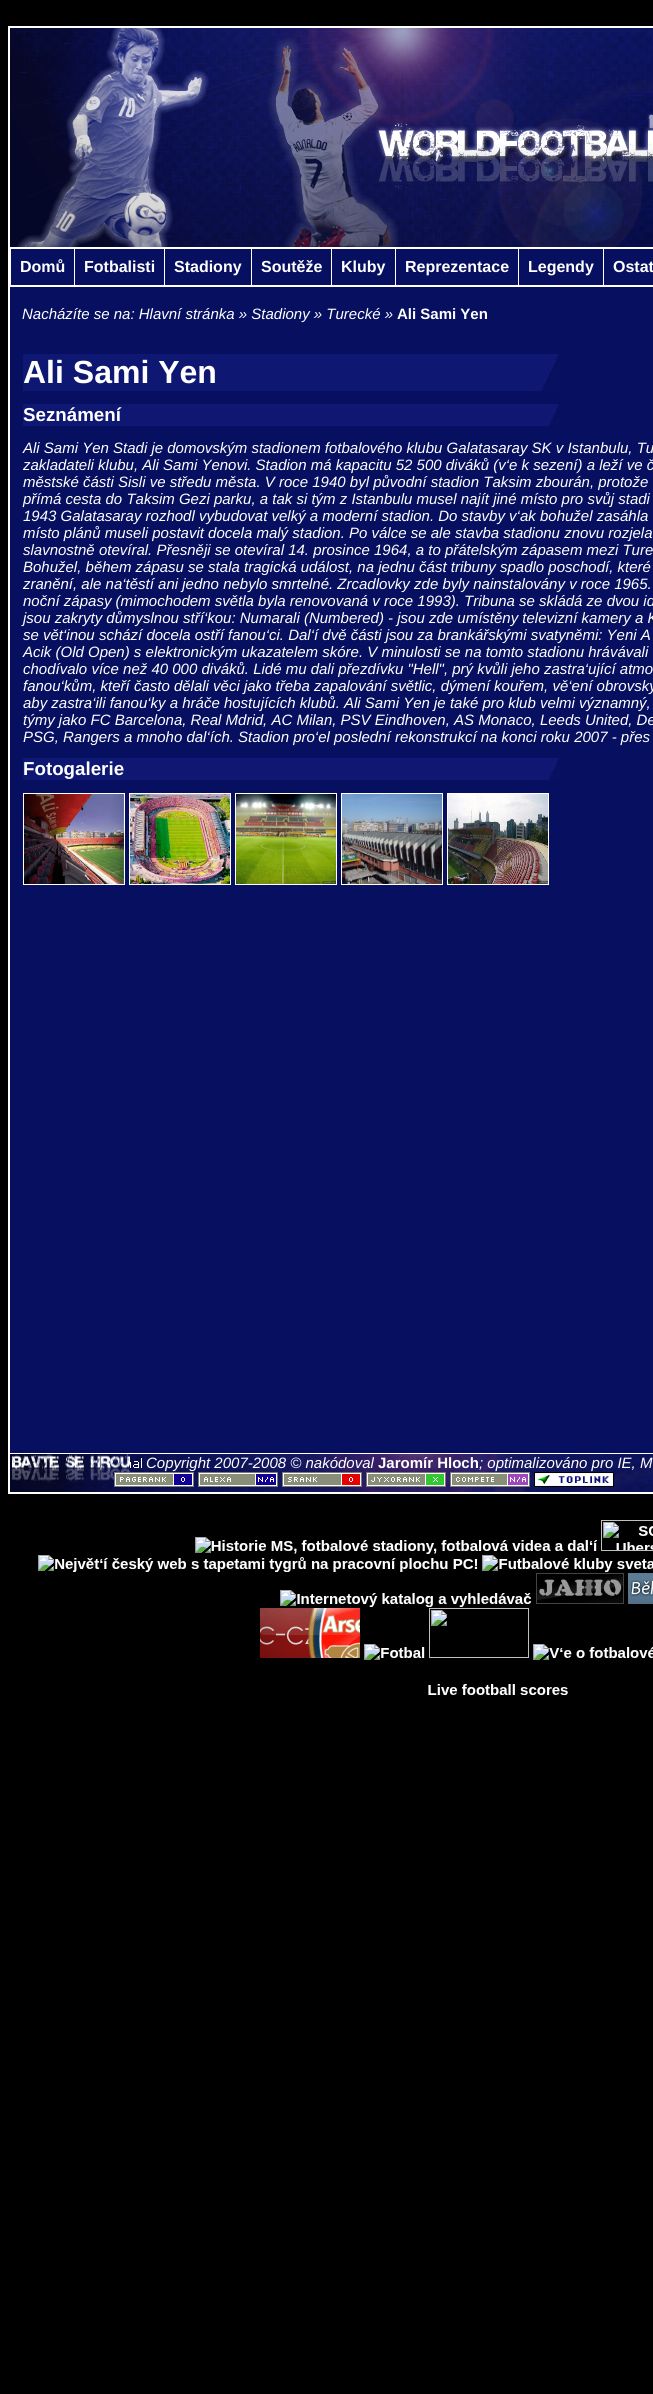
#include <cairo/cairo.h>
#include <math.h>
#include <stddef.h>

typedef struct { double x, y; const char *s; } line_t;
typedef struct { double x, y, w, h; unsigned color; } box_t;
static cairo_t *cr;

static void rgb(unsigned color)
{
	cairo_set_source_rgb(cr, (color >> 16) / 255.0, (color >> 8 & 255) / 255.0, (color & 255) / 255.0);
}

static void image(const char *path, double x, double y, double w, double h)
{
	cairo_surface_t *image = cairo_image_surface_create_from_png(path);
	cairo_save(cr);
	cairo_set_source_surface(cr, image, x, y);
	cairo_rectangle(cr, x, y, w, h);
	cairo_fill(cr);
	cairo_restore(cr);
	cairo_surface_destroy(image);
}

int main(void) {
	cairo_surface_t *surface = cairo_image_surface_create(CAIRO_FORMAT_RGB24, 653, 2394);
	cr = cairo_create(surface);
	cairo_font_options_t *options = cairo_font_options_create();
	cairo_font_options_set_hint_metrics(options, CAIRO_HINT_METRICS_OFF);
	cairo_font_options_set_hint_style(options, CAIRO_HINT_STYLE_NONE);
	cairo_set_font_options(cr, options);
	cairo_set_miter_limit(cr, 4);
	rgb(0x000000);
	cairo_paint(cr);
	{
		static const box_t items[] = {
			{8, 26, 645, 2, 0xffffff},
			{8, 1492, 645, 2, 0xffffff},
			{9, 247, 644, 1, 0xffffff},
			{9, 286, 644, 1, 0xffffff},
			{9, 1453, 644, 1, 0xffffff},
			{8, 26, 2, 1468, 0xffffff},
		};
		for (size_t i = 0; i < sizeof items / sizeof *items; i++) {
			rgb(items[i].color);
			cairo_rectangle(cr, items[i].x, items[i].y, items[i].w, items[i].h);
			cairo_fill(cr);
		}
	}
	image("img/1.png", 10, 28, 643, 219);
	rgb(0x071060);
	cairo_rectangle(cr, 11, 249, 642, 36);
	cairo_fill(cr);
	cairo_rectangle(cr, 10.5, 248.5, 64, 37);
	rgb(0xffffff);
	cairo_set_line_width(cr, 1);
	cairo_stroke(cr);
	{
		static const box_t items[] = {
			{75, 248, 578, 1, 0xffffff},
			{164, 248, 1, 38, 0xffffff},
			{75, 285, 90, 1, 0xffffff},
			{251, 248, 1, 38, 0xffffff},
			{165, 285, 87, 1, 0xffffff},
			{331, 248, 1, 38, 0xffffff},
			{252, 285, 80, 1, 0xffffff},
			{395, 248, 1, 38, 0xffffff},
			{332, 285, 64, 1, 0xffffff},
			{518, 248, 1, 38, 0xffffff},
			{396, 285, 123, 1, 0xffffff},
			{603, 248, 1, 38, 0xffffff},
			{519, 285, 134, 1, 0xffffff},
			{10, 287, 643, 1166, 0x071060},
		};
		for (size_t i = 0; i < sizeof items / sizeof *items; i++) {
			rgb(items[i].color);
			cairo_rectangle(cr, items[i].x, items[i].y, items[i].w, items[i].h);
			cairo_fill(cr);
		}
	}
	image("img/2.png", 23, 354, 536, 37);
	image("img/3.png", 23, 404, 536, 22);
	image("img/3.png", 23, 758, 536, 22);
	cairo_rectangle(cr, 23.5, 793.5, 101, 91);
	rgb(0xffffff);
	cairo_stroke(cr);
	cairo_rectangle(cr, 129.5, 793.5, 101, 91);
	cairo_stroke(cr);
	cairo_rectangle(cr, 235.5, 793.5, 101, 91);
	cairo_stroke(cr);
	cairo_rectangle(cr, 341.5, 793.5, 101, 91);
	cairo_stroke(cr);
	cairo_rectangle(cr, 447.5, 793.5, 101, 91);
	cairo_stroke(cr);
	image("img/4.png", 24, 794, 100, 90);
	image("img/5.png", 130, 794, 100, 90);
	image("img/6.png", 236, 794, 100, 90);
	image("img/7.png", 342, 794, 100, 90);
	image("img/8.png", 448, 794, 100, 90);
	image("img/9.png", 10, 1454, 643, 38);
	image("img/10.png", 128, 1458, 14, 10);
	image("img/11.png", 114, 1472, 80, 15);
	image("img/12.png", 198, 1472, 80, 15);
	image("img/13.png", 282, 1472, 80, 15);
	image("img/14.png", 366, 1472, 80, 15);
	image("img/15.png", 450, 1472, 80, 15);
	image("img/16.png", 534, 1472, 80, 15);
	image("img/17.png", 38, 1520, 615, 175);
	cairo_select_font_face(cr, "Liberation Sans", CAIRO_FONT_SLANT_NORMAL, CAIRO_FONT_WEIGHT_BOLD);
	cairo_set_font_size(cr, 16);
	{
		static const line_t items[] = {
			{20, 272, "Domů"},
			{84, 272, "Fotbalisti"},
			{174, 272, "Stadiony"},
			{261, 272, "Soutěže"},
			{341, 272, "Kluby"},
			{405, 272, "Reprezentace"},
			{528, 272, "Legendy"},
			{613, 272, "Ostat"},
		};
		for (size_t i = 0; i < sizeof items / sizeof *items; i++) {
			cairo_move_to(cr, items[i].x, items[i].y);
			cairo_show_text(cr, items[i].s);
		}
	}
	cairo_select_font_face(cr, "Liberation Sans", CAIRO_FONT_SLANT_ITALIC, CAIRO_FONT_WEIGHT_NORMAL);
	cairo_set_font_size(cr, 15);
	cairo_move_to(cr, 22, 319);
	cairo_show_text(cr, "Nacházíte se na: Hlavní stránka » Stadiony » Turecké »");
	cairo_select_font_face(cr, "Liberation Sans", CAIRO_FONT_SLANT_NORMAL, CAIRO_FONT_WEIGHT_BOLD);
	cairo_move_to(cr, 397, 319);
	cairo_show_text(cr, "Ali Sami Yen");
	cairo_set_font_size(cr, 32);
	cairo_move_to(cr, 23, 383);
	cairo_show_text(cr, "Ali Sami Yen");
	cairo_set_font_size(cr, 18.75);
	cairo_move_to(cr, 23, 421);
	cairo_show_text(cr, "Seznámení");
	cairo_select_font_face(cr, "Liberation Sans", CAIRO_FONT_SLANT_ITALIC, CAIRO_FONT_WEIGHT_NORMAL);
	cairo_set_font_size(cr, 15);
	{
		static const line_t items[] = {
			{23, 453, "Ali Sami Yen Stadi je domovským stadionem fotbalového klubu Galatasaray SK v Istanbulu, Tu"},
			{23, 470, "zakladateli klubu, Ali Sami Yenovi. Stadion má kapacitu 52 500 diváků (v‘e k sezení) a leží ve č"},
			{23, 487, "městské části Sisli ve středu města. V roce 1940 byl původní stadion Taksim zbourán, protože"},
			{23, 504, "přímá cesta do Taksim Gezi parku, a tak si tým z Istanbulu musel najít jiné místo pro svůj stadi"},
			{23, 521, "1943 Galatasaray rozhodl vybudovat velký a moderní stadion. Do stavby v‘ak bohužel zasáhla"},
			{23, 538, "místo plánů museli postavit docela malý stadion. Po válce se ale stavba stadionu znovu rozjela"},
			{23, 555, "slavnostně otevíral. Přesněji se otevíral 14. prosince 1964, a to přátelským zápasem mezi Ture"},
			{23, 572, "Bohužel, během zápasu se stala tragická událost, na jednu část tribuny spadlo poschodí, které"},
			{23, 589, "zranění, ale na‘těstí ani jedno nebylo smrtelné. Zrcadlovky zde byly nainstalovány v roce 1965."},
			{23, 606, "noční zápasy (mimochodem světla byla renovovaná v roce 1993). Tribuna se skládá ze dvou id"},
			{23, 623, "jsou zakryty důmyslnou stří‘kou: Numarali (Numbered) - jsou zde umístěny televizní kamery a K"},
			{23, 640, "se vět‘inou schází docela ostří fanou‘ci. Dal‘í dvě části jsou za brankářskými svatyněmi: Yeni A"},
			{23, 657, "Acik (Old Open) s elektronickým ukazatelem skóre. V minulosti se na tomto stadionu hrávávali"},
			{23, 674, "chodívalo více než 40 000 diváků. Lidé mu dali přezdívku \"Hell\", prý kvůli jeho zastra‘ující atmo"},
			{23, 691, "fanou‘kům, kteří často dělali věci jako třeba zapalování světlic, dýmení kouřem, vě‘ení obrovský"},
			{23, 708, "aby zastra‘ili fanou‘ky a hráče hostujících klubů. Ali Sami Yen je také pro klub velmi významný,"},
			{23, 725, "týmy jako FC Barcelona, Real Mdrid, AC Milan, PSV Eindhoven, AS Monaco, Leeds United, De"},
			{23, 742, "PSG, Rangers a mnoho dal‘ích. Stadion pro‘el poslední rekonstrukcí na konci roku 2007 - přes"},
		};
		for (size_t i = 0; i < sizeof items / sizeof *items; i++) {
			cairo_move_to(cr, items[i].x, items[i].y);
			cairo_show_text(cr, items[i].s);
		}
	}
	cairo_select_font_face(cr, "Liberation Sans", CAIRO_FONT_SLANT_NORMAL, CAIRO_FONT_WEIGHT_BOLD);
	cairo_set_font_size(cr, 18.75);
	cairo_move_to(cr, 23, 775);
	cairo_show_text(cr, "Fotogalerie");
	cairo_select_font_face(cr, "Liberation Sans", CAIRO_FONT_SLANT_ITALIC, CAIRO_FONT_WEIGHT_NORMAL);
	cairo_set_font_size(cr, 15);
	cairo_move_to(cr, 146, 1468);
	cairo_show_text(cr, "Copyright 2007-2008 © nakódoval");
	cairo_select_font_face(cr, "Liberation Sans", CAIRO_FONT_SLANT_NORMAL, CAIRO_FONT_WEIGHT_BOLD);
	cairo_move_to(cr, 378, 1468);
	cairo_show_text(cr, "Jaromír Hloch");
	cairo_select_font_face(cr, "Liberation Sans", CAIRO_FONT_SLANT_ITALIC, CAIRO_FONT_WEIGHT_NORMAL);
	cairo_move_to(cr, 479, 1468);
	cairo_show_text(cr, "; optimalizováno pro IE, M");
	cairo_surface_write_to_png(surface, "page.png");
	cairo_font_options_destroy(options);
	cairo_destroy(cr);
	cairo_surface_destroy(surface);
	return 0;
}
